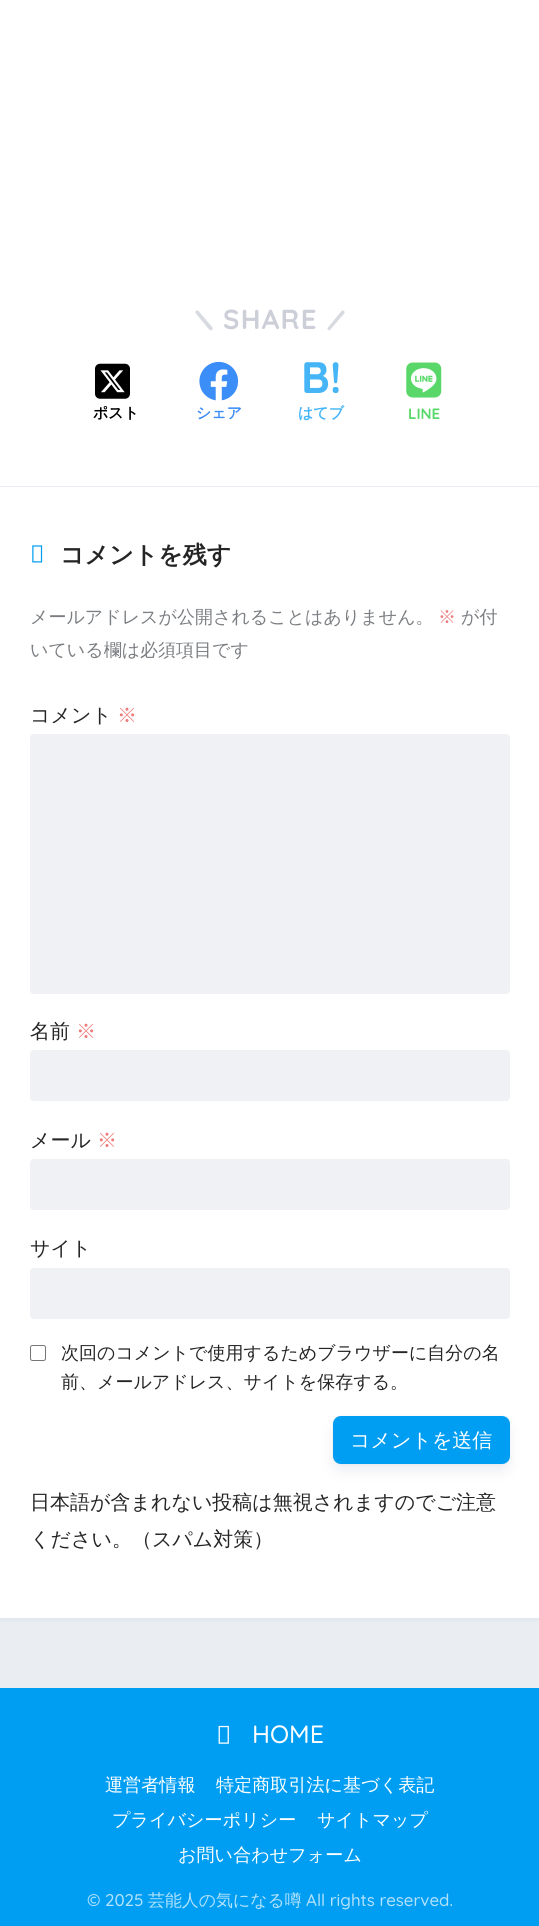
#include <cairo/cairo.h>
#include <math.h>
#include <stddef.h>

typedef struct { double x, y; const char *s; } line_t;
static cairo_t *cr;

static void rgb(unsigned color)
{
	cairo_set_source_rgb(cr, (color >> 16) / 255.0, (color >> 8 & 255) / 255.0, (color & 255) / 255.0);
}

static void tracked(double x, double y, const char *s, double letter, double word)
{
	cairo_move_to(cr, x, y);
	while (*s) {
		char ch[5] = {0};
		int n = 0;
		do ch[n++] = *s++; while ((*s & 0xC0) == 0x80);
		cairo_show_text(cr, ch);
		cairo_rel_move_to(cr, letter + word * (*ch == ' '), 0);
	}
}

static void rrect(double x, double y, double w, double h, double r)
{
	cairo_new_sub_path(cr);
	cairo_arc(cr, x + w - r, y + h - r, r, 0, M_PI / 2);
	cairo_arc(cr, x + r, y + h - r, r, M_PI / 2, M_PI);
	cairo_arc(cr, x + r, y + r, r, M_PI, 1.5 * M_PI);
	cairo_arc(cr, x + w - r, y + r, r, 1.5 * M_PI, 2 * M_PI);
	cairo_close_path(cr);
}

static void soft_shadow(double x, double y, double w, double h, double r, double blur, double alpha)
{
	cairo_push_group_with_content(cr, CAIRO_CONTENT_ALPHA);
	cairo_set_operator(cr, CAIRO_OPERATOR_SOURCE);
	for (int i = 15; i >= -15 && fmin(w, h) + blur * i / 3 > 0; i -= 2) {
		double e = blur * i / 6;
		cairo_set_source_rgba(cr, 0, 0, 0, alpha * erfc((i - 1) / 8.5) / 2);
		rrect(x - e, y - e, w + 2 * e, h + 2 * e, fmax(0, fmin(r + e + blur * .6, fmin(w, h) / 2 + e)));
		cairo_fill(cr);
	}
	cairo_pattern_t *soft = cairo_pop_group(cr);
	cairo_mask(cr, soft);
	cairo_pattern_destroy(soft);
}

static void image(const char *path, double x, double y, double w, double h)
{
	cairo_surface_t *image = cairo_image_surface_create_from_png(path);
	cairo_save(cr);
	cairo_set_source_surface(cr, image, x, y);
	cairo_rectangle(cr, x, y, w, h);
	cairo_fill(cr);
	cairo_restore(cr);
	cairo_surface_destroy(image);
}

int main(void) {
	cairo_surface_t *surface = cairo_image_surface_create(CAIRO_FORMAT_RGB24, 539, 1926);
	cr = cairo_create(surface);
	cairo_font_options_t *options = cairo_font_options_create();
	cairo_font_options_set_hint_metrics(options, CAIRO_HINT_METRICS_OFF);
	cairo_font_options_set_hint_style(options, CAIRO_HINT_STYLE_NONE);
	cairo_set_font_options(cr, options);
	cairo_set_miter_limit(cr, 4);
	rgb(0xeaedf2);
	cairo_paint(cr);
	rgb(0x4385bb);
	soft_shadow(0, -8, 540, 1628, 0, 2.5, 0.07);
	rgb(0xffffff);
	cairo_rectangle(cr, 0, 0, 539, 1618);
	cairo_fill(cr);
	rgb(0xd8dae1);
	cairo_new_path(cr);
	cairo_move_to(cr, 198.5, 311);
	cairo_line_to(cr, 210, 324.5);
	cairo_curve_to(cr, 211, 325.5, 214, 328.5, 212, 330);
	cairo_curve_to(cr, 210, 331.5, 208, 328, 207, 327);
	cairo_line_to(cr, 195.5, 313);
	cairo_curve_to(cr, 194.5, 311, 197.5, 309.5, 198.5, 311);
	cairo_close_path(cr);
	cairo_fill(cr);
	cairo_new_path(cr);
	cairo_move_to(cr, 328, 327.5);
	cairo_line_to(cr, 339, 314);
	cairo_curve_to(cr, 340, 313, 342, 309, 344, 311);
	cairo_curve_to(cr, 346, 312.5, 343, 315, 342, 316);
	cairo_line_to(cr, 330, 330);
	cairo_curve_to(cr, 328.5, 331, 326.5, 329, 328, 327.5);
	cairo_close_path(cr);
	cairo_fill(cr);
	image("img/1.png", 95, 363, 35, 36);
	image("img/2.png", 199, 361, 40, 40);
	image("img/3.png", 406, 362, 36, 36);
	rgb(0xeaedf2);
	cairo_rectangle(cr, 0, 486, 539, 1);
	cairo_fill(cr);
	image("img/4.png", 32, 545, 11, 18);
	rgb(0xeff1f5);
	rrect(30, 734, 480, 260, 4);
	cairo_fill(cr);
	rrect(30, 1050, 480, 51, 4);
	cairo_fill(cr);
	rrect(30, 1159, 480, 51, 4);
	cairo_fill(cr);
	rrect(30, 1268, 480, 51, 4);
	cairo_fill(cr);
	rrect(30.5, 1345.5, 15, 15, 2);
	rgb(0x767676);
	cairo_set_line_width(cr, 1);
	cairo_stroke(cr);
	rgb(0x001e64);
	soft_shadow(333, 1416, 177, 48, 8, 0.5, 0.1);
	rgb(0x000c42);
	soft_shadow(336, 1428, 170, 40, 4, 8, 0.1);
	rgb(0x009ef3);
	rrect(333, 1416, 177, 48, 8);
	cairo_fill(cr);
	cairo_rectangle(cr, 0, 1688, 539, 238);
	cairo_fill(cr);
	image("img/5.png", 218, 1725, 11, 19);
	cairo_select_font_face(cr, "Quicksand", CAIRO_FONT_SLANT_NORMAL, CAIRO_FONT_WEIGHT_BOLD);
	cairo_set_font_size(cr, 27.5);
	rgb(0xcccfd7);
	tracked(223, 329, "SHARE", 1.25, 0);
	cairo_select_font_face(cr, "WenQuanYi Zen Hei", CAIRO_FONT_SLANT_NORMAL, CAIRO_FONT_WEIGHT_BOLD);
	cairo_set_font_size(cr, 15);
	rgb(0x000000);
	cairo_move_to(cr, 93, 418);
	cairo_show_text(cr, "ポスト");
	rgb(0x3b8df7);
	cairo_move_to(cr, 196, 418);
	cairo_show_text(cr, "シェア");
	cairo_select_font_face(cr, "Quicksand", CAIRO_FONT_SLANT_NORMAL, CAIRO_FONT_WEIGHT_BOLD);
	cairo_set_font_size(cr, 44);
	rgb(0x45b5f7);
	cairo_move_to(cr, 301, 393);
	cairo_show_text(cr, "B!");
	cairo_select_font_face(cr, "WenQuanYi Zen Hei", CAIRO_FONT_SLANT_NORMAL, CAIRO_FONT_WEIGHT_BOLD);
	cairo_set_font_size(cr, 15);
	cairo_move_to(cr, 298, 418);
	cairo_show_text(cr, "はてブ");
	cairo_select_font_face(cr, "Quicksand", CAIRO_FONT_SLANT_NORMAL, CAIRO_FONT_WEIGHT_BOLD);
	rgb(0x59d869);
	cairo_move_to(cr, 408, 419);
	cairo_show_text(cr, "LINE");
	cairo_select_font_face(cr, "WenQuanYi Zen Hei", CAIRO_FONT_SLANT_NORMAL, CAIRO_FONT_WEIGHT_BOLD);
	cairo_set_font_size(cr, 24);
	rgb(0x252525);
	cairo_move_to(cr, 60, 563);
	cairo_show_text(cr, "コメントを残す");
	cairo_select_font_face(cr, "WenQuanYi Zen Hei Medium", CAIRO_FONT_SLANT_NORMAL, CAIRO_FONT_WEIGHT_NORMAL);
	cairo_set_font_size(cr, 18);
	rgb(0x7b7e82);
	cairo_move_to(cr, 30, 623);
	cairo_show_text(cr, "メールアドレスが公開されることはありません。");
	rgb(0xee7b7b);
	cairo_move_to(cr, 438, 623);
	cairo_show_text(cr, "※");
	rgb(0x7b7e82);
	cairo_move_to(cr, 461, 623);
	cairo_show_text(cr, "が付");
	cairo_move_to(cr, 30, 656);
	cairo_show_text(cr, "いている欄は必須項目です");
	cairo_set_font_size(cr, 20);
	rgb(0x252525);
	cairo_move_to(cr, 30, 722);
	cairo_show_text(cr, "コメント");
	rgb(0xee7b7b);
	cairo_move_to(cr, 117, 722);
	cairo_show_text(cr, "※");
	rgb(0x252525);
	cairo_move_to(cr, 30, 1038);
	cairo_show_text(cr, "名前");
	rgb(0xee7b7b);
	cairo_move_to(cr, 76, 1038);
	cairo_show_text(cr, "※");
	rgb(0x252525);
	cairo_move_to(cr, 30, 1147);
	cairo_show_text(cr, "メール");
	rgb(0xee7b7b);
	cairo_move_to(cr, 97, 1147);
	cairo_show_text(cr, "※");
	rgb(0x252525);
	cairo_move_to(cr, 30, 1255);
	cairo_show_text(cr, "サイト");
	cairo_set_font_size(cr, 18);
	cairo_move_to(cr, 61, 1359);
	cairo_show_text(cr, "次回のコメントで使用するためブラウザーに自分の名");
	cairo_move_to(cr, 61, 1388);
	cairo_show_text(cr, "前、メールアドレス、サイトを保存する。");
	cairo_set_font_size(cr, 20);
	rgb(0xffffff);
	cairo_move_to(cr, 350, 1447);
	cairo_show_text(cr, "コメントを送信");
	rgb(0x252525);
	cairo_move_to(cr, 30, 1509);
	cairo_show_text(cr, "日本語が含まれない投稿は無視されますのでご注意");
	cairo_move_to(cr, 30, 1546);
	cairo_show_text(cr, "ください。（スパム対策）");
	cairo_select_font_face(cr, "Quicksand Medium", CAIRO_FONT_SLANT_NORMAL, CAIRO_FONT_WEIGHT_NORMAL);
	cairo_set_font_size(cr, 25);
	rgb(0xffffff);
	cairo_move_to(cr, 252, 1743);
	cairo_show_text(cr, "HOME");
	cairo_select_font_face(cr, "WenQuanYi Zen Hei Medium", CAIRO_FONT_SLANT_NORMAL, CAIRO_FONT_WEIGHT_NORMAL);
	cairo_set_font_size(cr, 18.1);
	{
		static const line_t items[] = {
			{105, 1791, "運営者情報"},
			{216, 1791, "特定商取引法に基づく表記"},
			{112, 1826, "プライバシーポリシー"},
			{317, 1826, "サイトマップ"},
			{178, 1861, "お問い合わせフォーム"},
		};
		for (size_t i = 0; i < sizeof items / sizeof *items; i++) {
			cairo_move_to(cr, items[i].x, items[i].y);
			cairo_show_text(cr, items[i].s);
		}
	}
	cairo_select_font_face(cr, "Quicksand Medium", CAIRO_FONT_SLANT_NORMAL, CAIRO_FONT_WEIGHT_NORMAL);
	cairo_set_font_size(cr, 16.9);
	rgb(0xb3e2fb);
	cairo_move_to(cr, 87, 1906);
	cairo_show_text(cr, "© 2025");
	cairo_select_font_face(cr, "WenQuanYi Zen Hei Medium", CAIRO_FONT_SLANT_NORMAL, CAIRO_FONT_WEIGHT_NORMAL);
	cairo_move_to(cr, 148, 1906);
	cairo_show_text(cr, "芸能人の気になる噂");
	cairo_select_font_face(cr, "Quicksand Medium", CAIRO_FONT_SLANT_NORMAL, CAIRO_FONT_WEIGHT_NORMAL);
	cairo_move_to(cr, 306, 1906);
	cairo_show_text(cr, "All rights reserved.");
	cairo_surface_write_to_png(surface, "page.png");
	cairo_font_options_destroy(options);
	cairo_destroy(cr);
	cairo_surface_destroy(surface);
	return 0;
}
